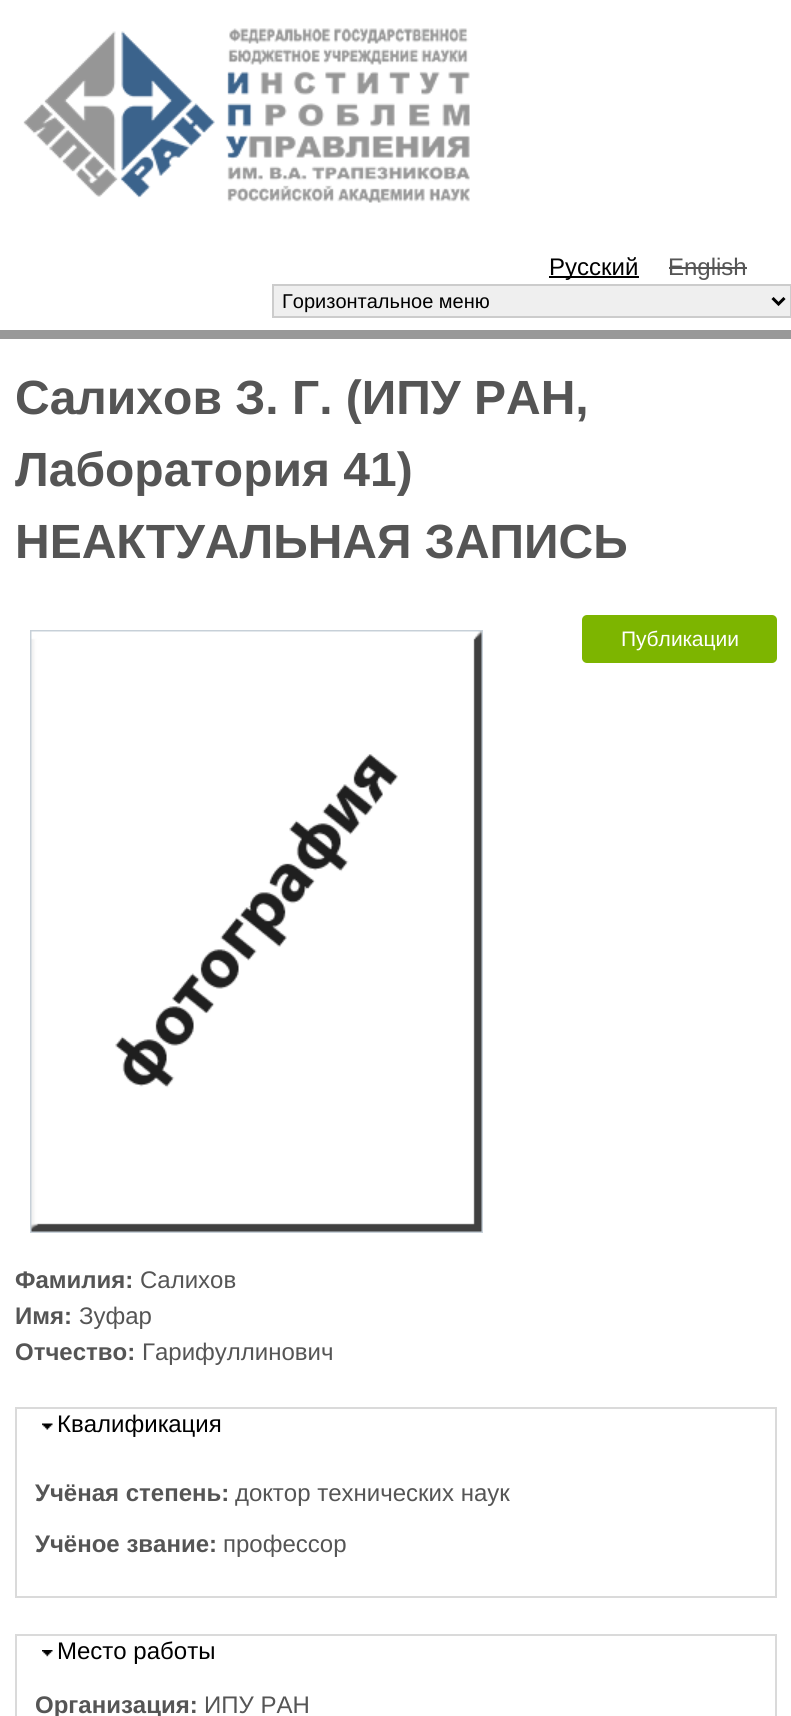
#include <cairo/cairo.h>
#include <math.h>
#include <stddef.h>

typedef struct { double x, y; const char *s; } line_t;
typedef struct { double x, y, w, h; unsigned color; } box_t;
static cairo_t *cr;

static void rgb(unsigned color)
{
	cairo_set_source_rgb(cr, (color >> 16) / 255.0, (color >> 8 & 255) / 255.0, (color & 255) / 255.0);
}

static void rrect(double x, double y, double w, double h, double r)
{
	cairo_new_sub_path(cr);
	cairo_arc(cr, x + w - r, y + h - r, r, 0, M_PI / 2);
	cairo_arc(cr, x + r, y + h - r, r, M_PI / 2, M_PI);
	cairo_arc(cr, x + r, y + r, r, M_PI, 1.5 * M_PI);
	cairo_arc(cr, x + w - r, y + r, r, 1.5 * M_PI, 2 * M_PI);
	cairo_close_path(cr);
}

static void image(const char *path, double x, double y, double w, double h)
{
	cairo_surface_t *image = cairo_image_surface_create_from_png(path);
	cairo_save(cr);
	cairo_set_source_surface(cr, image, x, y);
	cairo_rectangle(cr, x, y, w, h);
	cairo_fill(cr);
	cairo_restore(cr);
	cairo_surface_destroy(image);
}

int main(void) {
	cairo_surface_t *surface = cairo_image_surface_create(CAIRO_FORMAT_RGB24, 791, 1716);
	cr = cairo_create(surface);
	cairo_font_options_t *options = cairo_font_options_create();
	cairo_font_options_set_hint_metrics(options, CAIRO_HINT_METRICS_OFF);
	cairo_font_options_set_hint_style(options, CAIRO_HINT_STYLE_NONE);
	cairo_set_font_options(cr, options);
	cairo_set_miter_limit(cr, 4);
	rgb(0xffffff);
	cairo_paint(cr);
	image("img/1.png", 23, 28, 447, 175);
	{
		static const box_t items[] = {
			{549, 276, 90, 2, 0x000000},
			{669, 267, 78, 2, 0x555555},
			{0, 330, 791, 9, 0x999999},
		};
		for (size_t i = 0; i < sizeof items / sizeof *items; i++) {
			rgb(items[i].color);
			cairo_rectangle(cr, items[i].x, items[i].y, items[i].w, items[i].h);
			cairo_fill(cr);
		}
	}
	rgb(0xefefef);
	cairo_rectangle(cr, 273, 285, 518, 32);
	cairo_fill_preserve(cr);
	rgb(0xcccccc);
	cairo_stroke(cr);
	cairo_new_path(cr);
	cairo_move_to(cr, 772.5, 298);
	cairo_line_to(cr, 778.5, 304);
	cairo_line_to(cr, 784.5, 298);
	rgb(0x000000);
	cairo_set_line_width(cr, 3);
	cairo_stroke(cr);
	cairo_rectangle(cr, 31, 631, 451, 601);
	rgb(0xc7d0d8);
	cairo_set_line_width(cr, 2);
	cairo_stroke(cr);
	image("img/2.png", 31, 631, 451, 601);
	rgb(0x7db500);
	rrect(582, 615, 195, 48, 5);
	cairo_fill(cr);
	cairo_rectangle(cr, 16, 1408, 760, 189);
	rgb(0xdadada);
	cairo_stroke(cr);
	image("img/3.png", 42, 1423, 11, 7);
	cairo_rectangle(cr, 16, 1635, 760, 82);
	cairo_stroke(cr);
	image("img/4.png", 42, 1650, 11, 7);
	cairo_select_font_face(cr, "Liberation Sans", CAIRO_FONT_SLANT_NORMAL, CAIRO_FONT_WEIGHT_NORMAL);
	cairo_set_font_size(cr, 24);
	rgb(0x000000);
	cairo_move_to(cr, 549, 275);
	cairo_show_text(cr, "Русский");
	rgb(0x555555);
	cairo_move_to(cr, 668, 275);
	cairo_show_text(cr, "English");
	cairo_set_font_size(cr, 20);
	rgb(0x000000);
	cairo_move_to(cr, 282, 308);
	cairo_show_text(cr, "Горизонтальное меню");
	cairo_select_font_face(cr, "Liberation Sans", CAIRO_FONT_SLANT_NORMAL, CAIRO_FONT_WEIGHT_BOLD);
	cairo_set_font_size(cr, 48);
	rgb(0x555555);
	{
		static const line_t items[] = {
			{15, 414, "Салихов З. Г. (ИПУ РАН,"},
			{15, 486, "Лаборатория 41)"},
			{15, 558, "НЕАКТУАЛЬНАЯ ЗАПИСЬ"},
		};
		for (size_t i = 0; i < sizeof items / sizeof *items; i++) {
			cairo_move_to(cr, items[i].x, items[i].y);
			cairo_show_text(cr, items[i].s);
		}
	}
	cairo_select_font_face(cr, "Liberation Sans", CAIRO_FONT_SLANT_NORMAL, CAIRO_FONT_WEIGHT_NORMAL);
	cairo_set_font_size(cr, 21);
	rgb(0xffffff);
	cairo_move_to(cr, 621, 646);
	cairo_show_text(cr, "Публикации");
	cairo_select_font_face(cr, "Liberation Sans", CAIRO_FONT_SLANT_NORMAL, CAIRO_FONT_WEIGHT_BOLD);
	cairo_set_font_size(cr, 24);
	rgb(0x555555);
	cairo_move_to(cr, 15, 1288);
	cairo_show_text(cr, "Фамилия:");
	cairo_select_font_face(cr, "Liberation Sans", CAIRO_FONT_SLANT_NORMAL, CAIRO_FONT_WEIGHT_NORMAL);
	cairo_move_to(cr, 140, 1288);
	cairo_show_text(cr, "Салихов");
	cairo_select_font_face(cr, "Liberation Sans", CAIRO_FONT_SLANT_NORMAL, CAIRO_FONT_WEIGHT_BOLD);
	cairo_move_to(cr, 15, 1324);
	cairo_show_text(cr, "Имя:");
	cairo_select_font_face(cr, "Liberation Sans", CAIRO_FONT_SLANT_NORMAL, CAIRO_FONT_WEIGHT_NORMAL);
	cairo_move_to(cr, 79, 1324);
	cairo_show_text(cr, "Зуфар");
	cairo_select_font_face(cr, "Liberation Sans", CAIRO_FONT_SLANT_NORMAL, CAIRO_FONT_WEIGHT_BOLD);
	cairo_move_to(cr, 15, 1360);
	cairo_show_text(cr, "Отчество:");
	cairo_select_font_face(cr, "Liberation Sans", CAIRO_FONT_SLANT_NORMAL, CAIRO_FONT_WEIGHT_NORMAL);
	cairo_move_to(cr, 142, 1360);
	cairo_show_text(cr, "Гарифуллинович");
	rgb(0x000000);
	cairo_move_to(cr, 57, 1432);
	cairo_show_text(cr, "Квалификация");
	cairo_select_font_face(cr, "Liberation Sans", CAIRO_FONT_SLANT_NORMAL, CAIRO_FONT_WEIGHT_BOLD);
	rgb(0x555555);
	cairo_move_to(cr, 35, 1501);
	cairo_show_text(cr, "Учёная степень:");
	cairo_select_font_face(cr, "Liberation Sans", CAIRO_FONT_SLANT_NORMAL, CAIRO_FONT_WEIGHT_NORMAL);
	cairo_move_to(cr, 235, 1501);
	cairo_show_text(cr, "доктор технических наук");
	cairo_select_font_face(cr, "Liberation Sans", CAIRO_FONT_SLANT_NORMAL, CAIRO_FONT_WEIGHT_BOLD);
	cairo_move_to(cr, 35, 1552);
	cairo_show_text(cr, "Учёное звание:");
	cairo_select_font_face(cr, "Liberation Sans", CAIRO_FONT_SLANT_NORMAL, CAIRO_FONT_WEIGHT_NORMAL);
	cairo_move_to(cr, 223, 1552);
	cairo_show_text(cr, "профессор");
	rgb(0x000000);
	cairo_move_to(cr, 57, 1659);
	cairo_show_text(cr, "Место работы");
	cairo_select_font_face(cr, "Liberation Sans", CAIRO_FONT_SLANT_NORMAL, CAIRO_FONT_WEIGHT_BOLD);
	rgb(0x555555);
	cairo_move_to(cr, 35, 1713);
	cairo_show_text(cr, "Организация:");
	cairo_select_font_face(cr, "Liberation Sans", CAIRO_FONT_SLANT_NORMAL, CAIRO_FONT_WEIGHT_NORMAL);
	cairo_move_to(cr, 204, 1713);
	cairo_show_text(cr, "ИПУ РАН");
	cairo_surface_write_to_png(surface, "page.png");
	cairo_font_options_destroy(options);
	cairo_destroy(cr);
	cairo_surface_destroy(surface);
	return 0;
}
